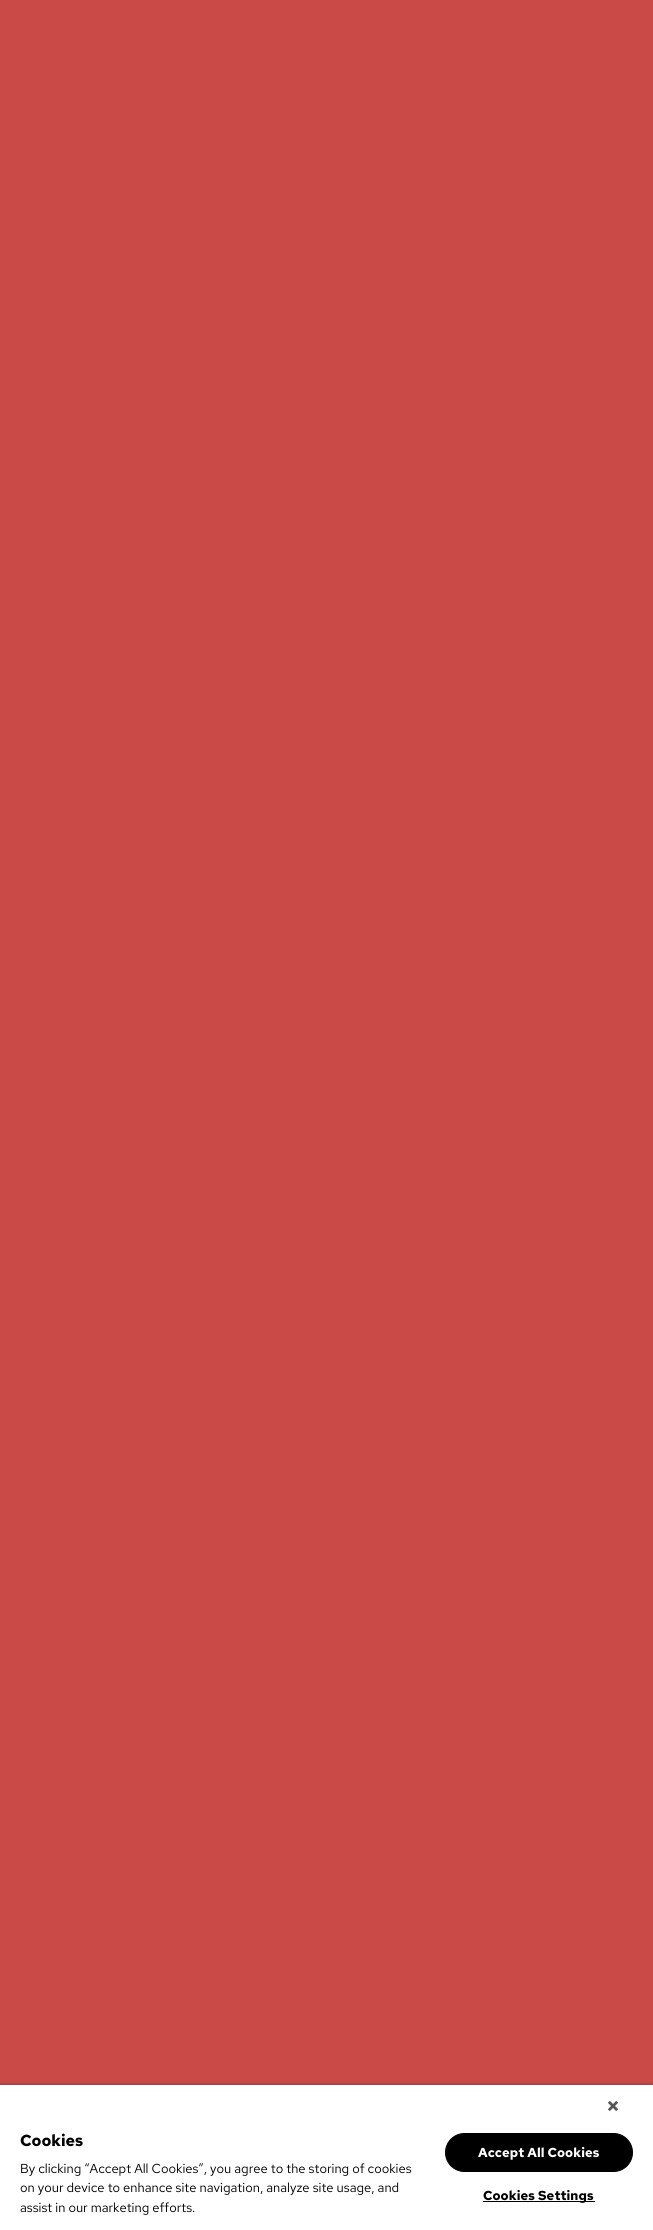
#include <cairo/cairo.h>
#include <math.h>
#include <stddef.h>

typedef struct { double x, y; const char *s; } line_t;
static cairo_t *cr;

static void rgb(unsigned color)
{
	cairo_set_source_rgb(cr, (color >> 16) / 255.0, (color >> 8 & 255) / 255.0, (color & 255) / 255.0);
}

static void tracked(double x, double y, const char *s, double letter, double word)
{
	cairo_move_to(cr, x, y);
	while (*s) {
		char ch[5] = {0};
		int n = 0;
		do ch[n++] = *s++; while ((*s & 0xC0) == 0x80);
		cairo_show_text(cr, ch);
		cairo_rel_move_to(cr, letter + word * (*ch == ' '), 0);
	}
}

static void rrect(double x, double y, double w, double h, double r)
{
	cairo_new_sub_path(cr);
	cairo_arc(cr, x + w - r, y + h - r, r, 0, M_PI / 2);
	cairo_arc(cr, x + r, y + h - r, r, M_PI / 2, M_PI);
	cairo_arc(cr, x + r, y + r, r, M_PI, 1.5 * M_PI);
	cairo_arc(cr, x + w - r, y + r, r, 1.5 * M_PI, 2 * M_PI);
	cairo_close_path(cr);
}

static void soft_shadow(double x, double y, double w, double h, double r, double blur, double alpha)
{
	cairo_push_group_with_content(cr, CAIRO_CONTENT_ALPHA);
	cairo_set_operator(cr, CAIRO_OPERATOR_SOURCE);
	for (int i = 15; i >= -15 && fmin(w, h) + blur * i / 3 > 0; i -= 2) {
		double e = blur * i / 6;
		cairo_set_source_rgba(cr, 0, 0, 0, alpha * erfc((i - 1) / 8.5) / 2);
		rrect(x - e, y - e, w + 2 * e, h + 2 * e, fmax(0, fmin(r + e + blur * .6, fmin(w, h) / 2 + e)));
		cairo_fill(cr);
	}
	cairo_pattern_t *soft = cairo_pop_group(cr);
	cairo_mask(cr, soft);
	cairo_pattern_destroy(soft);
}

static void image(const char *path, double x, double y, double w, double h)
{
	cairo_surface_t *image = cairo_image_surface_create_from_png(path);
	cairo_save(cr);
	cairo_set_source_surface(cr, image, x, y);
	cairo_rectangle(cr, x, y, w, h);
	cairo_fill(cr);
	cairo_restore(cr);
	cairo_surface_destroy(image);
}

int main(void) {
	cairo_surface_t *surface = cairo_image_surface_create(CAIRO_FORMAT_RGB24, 653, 2230);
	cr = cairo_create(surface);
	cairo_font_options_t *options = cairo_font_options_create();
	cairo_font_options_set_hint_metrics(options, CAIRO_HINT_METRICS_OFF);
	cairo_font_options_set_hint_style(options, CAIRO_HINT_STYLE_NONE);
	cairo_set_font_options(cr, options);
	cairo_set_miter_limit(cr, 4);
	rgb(0xca4a48);
	cairo_paint(cr);
	rgb(0x000000);
	soft_shadow(0, 2085, 653, 145, 0, 2, 0.35);
	rgb(0xffffff);
	cairo_rectangle(cr, 0, 2085, 653, 145);
	cairo_fill(cr);
	image("img/1.png", 608, 2101, 10, 10);
	rgb(0x000000);
	rrect(445.5, 2133.5, 187, 38, 19);
	cairo_fill_preserve(cr);
	cairo_set_line_width(cr, 1);
	cairo_stroke(cr);
	cairo_rectangle(cr, 483, 2201, 112, 1);
	cairo_fill(cr);
	cairo_select_font_face(cr, "Red Hat Text", CAIRO_FONT_SLANT_NORMAL, CAIRO_FONT_WEIGHT_BOLD);
	cairo_set_font_size(cr, 16);
	cairo_move_to(cr, 20, 2146);
	cairo_show_text(cr, "Cookies");
	cairo_select_font_face(cr, "Red Hat Text", CAIRO_FONT_SLANT_NORMAL, CAIRO_FONT_WEIGHT_NORMAL);
	cairo_set_font_size(cr, 13);
	{
		static const line_t items[] = {
			{20, 2173, "By clicking “Accept All Cookies”, you agree to the storing of cookies"},
			{20, 2192, "on your device to enhance site navigation, analyze site usage, and"},
			{20, 2212, "assist in our marketing efforts."},
		};
		for (size_t i = 0; i < sizeof items / sizeof *items; i++) {
			cairo_move_to(cr, items[i].x, items[i].y);
			cairo_show_text(cr, items[i].s);
		}
	}
	cairo_select_font_face(cr, "Red Hat Text", CAIRO_FONT_SLANT_NORMAL, CAIRO_FONT_WEIGHT_BOLD);
	rgb(0xffffff);
	tracked(478, 2157, "Accept All Cookies", 0.1, 0);
	rgb(0x000000);
	tracked(483, 2200, "Cookies Settings", 0.1, 0);
	cairo_surface_write_to_png(surface, "page.png");
	cairo_font_options_destroy(options);
	cairo_destroy(cr);
	cairo_surface_destroy(surface);
	return 0;
}
